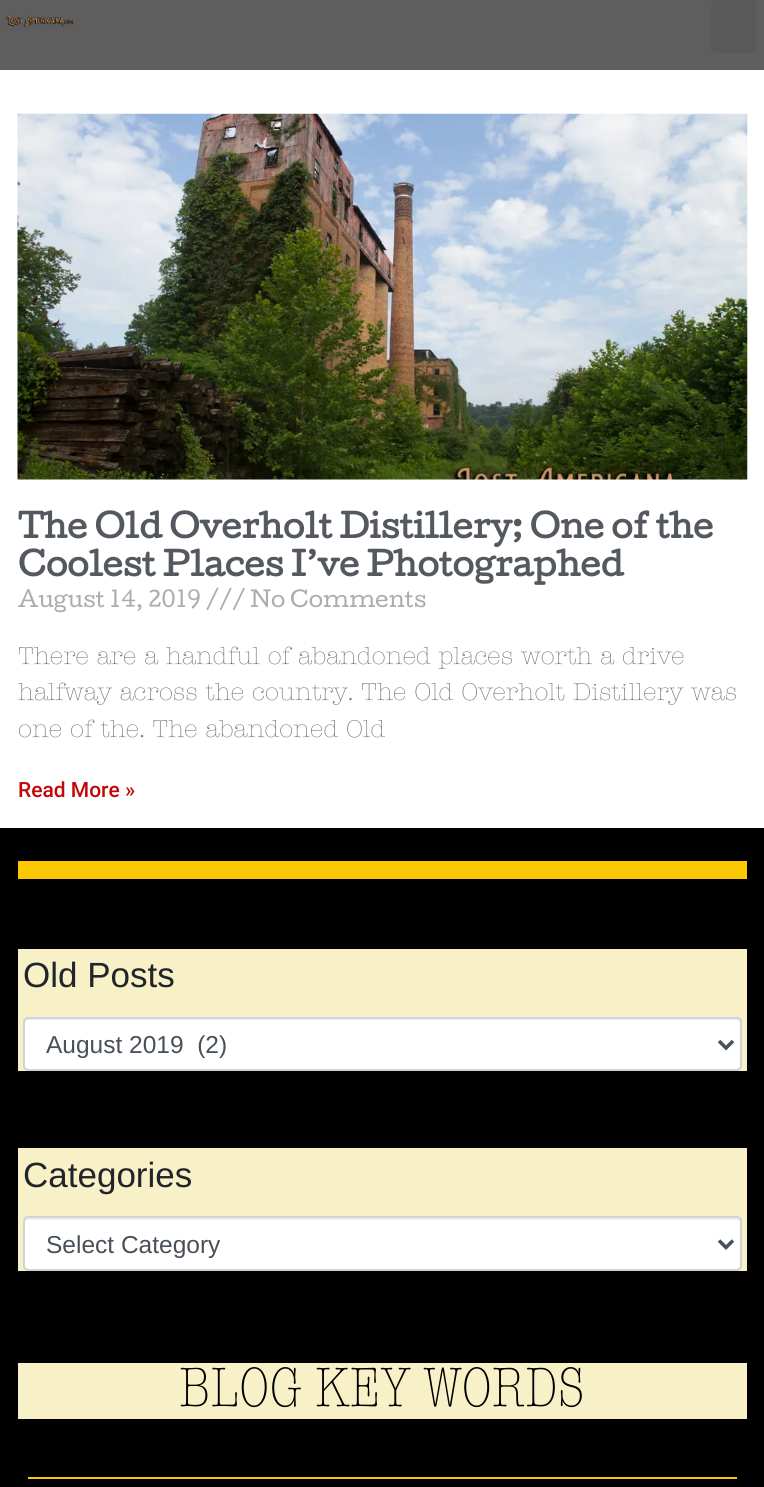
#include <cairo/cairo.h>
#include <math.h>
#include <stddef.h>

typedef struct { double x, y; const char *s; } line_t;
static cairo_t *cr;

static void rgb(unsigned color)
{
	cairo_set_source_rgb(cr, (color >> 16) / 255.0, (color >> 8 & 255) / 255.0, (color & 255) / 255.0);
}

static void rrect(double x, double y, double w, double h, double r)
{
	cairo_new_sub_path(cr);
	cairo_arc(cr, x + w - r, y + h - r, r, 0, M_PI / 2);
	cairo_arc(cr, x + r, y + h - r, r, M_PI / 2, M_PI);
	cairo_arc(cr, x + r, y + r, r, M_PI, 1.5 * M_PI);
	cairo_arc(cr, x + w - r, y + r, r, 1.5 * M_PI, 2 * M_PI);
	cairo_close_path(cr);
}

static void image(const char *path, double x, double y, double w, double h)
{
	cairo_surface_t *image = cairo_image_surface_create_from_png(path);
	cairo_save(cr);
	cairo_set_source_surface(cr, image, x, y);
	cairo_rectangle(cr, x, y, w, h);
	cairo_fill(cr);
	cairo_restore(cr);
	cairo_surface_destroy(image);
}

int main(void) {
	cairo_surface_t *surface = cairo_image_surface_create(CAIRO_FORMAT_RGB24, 764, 1487);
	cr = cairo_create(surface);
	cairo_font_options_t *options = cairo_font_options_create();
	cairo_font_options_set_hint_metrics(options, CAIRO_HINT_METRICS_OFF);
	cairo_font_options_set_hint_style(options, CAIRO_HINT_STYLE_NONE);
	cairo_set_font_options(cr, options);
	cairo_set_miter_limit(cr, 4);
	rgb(0x000000);
	cairo_paint(cr);
	rgb(0x5e5e5e);
	cairo_rectangle(cr, 0, 0, 764, 70);
	cairo_fill(cr);
	image("img/1.png", 6, 15, 68, 12);
	rgb(0x595959);
	rrect(711, 0, 45, 53, 5);
	cairo_fill(cr);
	rgb(0xffffff);
	cairo_rectangle(cr, 0, 70, 764, 758);
	cairo_fill(cr);
	image("img/2.png", 17, 113, 731, 367);
	rgb(0xfbc803);
	cairo_rectangle(cr, 18, 861, 729, 18);
	cairo_fill(cr);
	rgb(0xf8f0c7);
	cairo_rectangle(cr, 18, 949, 729, 122);
	cairo_fill(cr);
	rgb(0xffffff);
	rrect(25, 1019, 715, 50, 4);
	cairo_fill(cr);
	cairo_set_source_rgba(cr, 0, 0, 0, 0.07);
	cairo_new_path(cr);
	cairo_move_to(cr, 28, 1020);
	cairo_line_to(cr, 736, 1020);
	cairo_curve_to(cr, 739, 1020, 740, 1022, 740, 1024);
	cairo_line_to(cr, 740, 1023);
	cairo_curve_to(cr, 740, 1021, 738, 1019, 736, 1019);
	cairo_line_to(cr, 29, 1019);
	cairo_curve_to(cr, 28, 1019, 26, 1020, 26, 1021);
	cairo_close_path(cr);
	cairo_fill(cr);
	rrect(24, 1018, 717, 52, 4);
	rgb(0xced4da);
	cairo_stroke(cr);
	cairo_new_path(cr);
	cairo_move_to(cr, 719, 1041);
	cairo_line_to(cr, 726, 1048);
	cairo_line_to(cr, 733, 1041);
	rgb(0x495057);
	cairo_set_line_width(cr, 3.5);
	cairo_stroke(cr);
	rgb(0xf8f0c7);
	cairo_rectangle(cr, 18, 1148, 729, 123);
	cairo_fill(cr);
	rgb(0xffffff);
	rrect(25, 1218, 715, 51, 4);
	cairo_fill(cr);
	cairo_set_source_rgba(cr, 0, 0, 0, 0.07);
	cairo_new_path(cr);
	cairo_move_to(cr, 28, 1220);
	cairo_line_to(cr, 736, 1220);
	cairo_curve_to(cr, 739, 1220, 740, 1221, 740, 1224);
	cairo_line_to(cr, 740, 1222);
	cairo_curve_to(cr, 740, 1220, 738, 1218, 736, 1218);
	cairo_line_to(cr, 29, 1218);
	cairo_curve_to(cr, 27, 1218, 26, 1219, 25, 1221);
	cairo_close_path(cr);
	cairo_fill(cr);
	rrect(24, 1217, 717, 53, 4);
	rgb(0xced4da);
	cairo_set_line_width(cr, 2);
	cairo_stroke(cr);
	cairo_new_path(cr);
	cairo_move_to(cr, 719, 1240.5);
	cairo_line_to(cr, 726, 1247.5);
	cairo_line_to(cr, 733, 1240.5);
	rgb(0x495057);
	cairo_set_line_width(cr, 3.5);
	cairo_stroke(cr);
	rgb(0xf8f0c7);
	cairo_rectangle(cr, 18, 1363, 729, 56);
	cairo_fill(cr);
	rgb(0xfbc803);
	cairo_rectangle(cr, 28, 1477, 709, 2);
	cairo_fill(cr);
	cairo_select_font_face(cr, "Cutive", CAIRO_FONT_SLANT_NORMAL, CAIRO_FONT_WEIGHT_BOLD);
	cairo_set_font_size(cr, 31.5);
	rgb(0x54595f);
	cairo_move_to(cr, 18, 538);
	cairo_show_text(cr, "The Old Overholt Distillery; One of the");
	cairo_move_to(cr, 18, 576);
	cairo_show_text(cr, "Coolest Places I’ve Photographed");
	cairo_select_font_face(cr, "Cutive", CAIRO_FONT_SLANT_NORMAL, CAIRO_FONT_WEIGHT_NORMAL);
	cairo_set_font_size(cr, 21);
	rgb(0xadadad);
	cairo_move_to(cr, 18, 607);
	cairo_show_text(cr, "August 14, 2019 /// No Comments");
	cairo_select_font_face(cr, "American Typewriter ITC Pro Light", CAIRO_FONT_SLANT_NORMAL, CAIRO_FONT_WEIGHT_NORMAL);
	cairo_set_font_size(cr, 24.5);
	rgb(0x777777);
	{
		static const line_t items[] = {
			{18, 664, "There are a handful of abandoned places worth a drive"},
			{18, 700, "halfway across the country. The Old Overholt Distillery was"},
			{18, 737, "one of the. The abandoned Old"},
		};
		for (size_t i = 0; i < sizeof items / sizeof *items; i++) {
			cairo_move_to(cr, items[i].x, items[i].y);
			cairo_show_text(cr, items[i].s);
		}
	}
	cairo_select_font_face(cr, "Roboto Medium", CAIRO_FONT_SLANT_NORMAL, CAIRO_FONT_WEIGHT_NORMAL);
	cairo_set_font_size(cr, 21);
	rgb(0xc30505);
	cairo_move_to(cr, 18, 797);
	cairo_show_text(cr, "Read More »");
	cairo_select_font_face(cr, "Liberation Sans", CAIRO_FONT_SLANT_NORMAL, CAIRO_FONT_WEIGHT_NORMAL);
	cairo_set_font_size(cr, 35);
	rgb(0x212529);
	cairo_move_to(cr, 23, 987);
	cairo_show_text(cr, "Old Posts");
	cairo_set_font_size(cr, 24.5);
	rgb(0x495057);
	cairo_move_to(cr, 46, 1053);
	cairo_show_text(cr, "August 2019  (2)");
	cairo_set_font_size(cr, 35);
	rgb(0x212529);
	cairo_move_to(cr, 23, 1187);
	cairo_show_text(cr, "Categories");
	cairo_set_font_size(cr, 24.5);
	rgb(0x495057);
	cairo_move_to(cr, 46, 1253);
	cairo_show_text(cr, "Select Category");
	cairo_select_font_face(cr, "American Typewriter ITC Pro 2 Light", CAIRO_FONT_SLANT_NORMAL, CAIRO_FONT_WEIGHT_NORMAL);
	cairo_set_font_size(cr, 56);
	rgb(0x000000);
	cairo_move_to(cr, 179, 1406);
	cairo_show_text(cr, "BLOG KEY WORDS");
	cairo_surface_write_to_png(surface, "page.png");
	cairo_font_options_destroy(options);
	cairo_destroy(cr);
	cairo_surface_destroy(surface);
	return 0;
}
